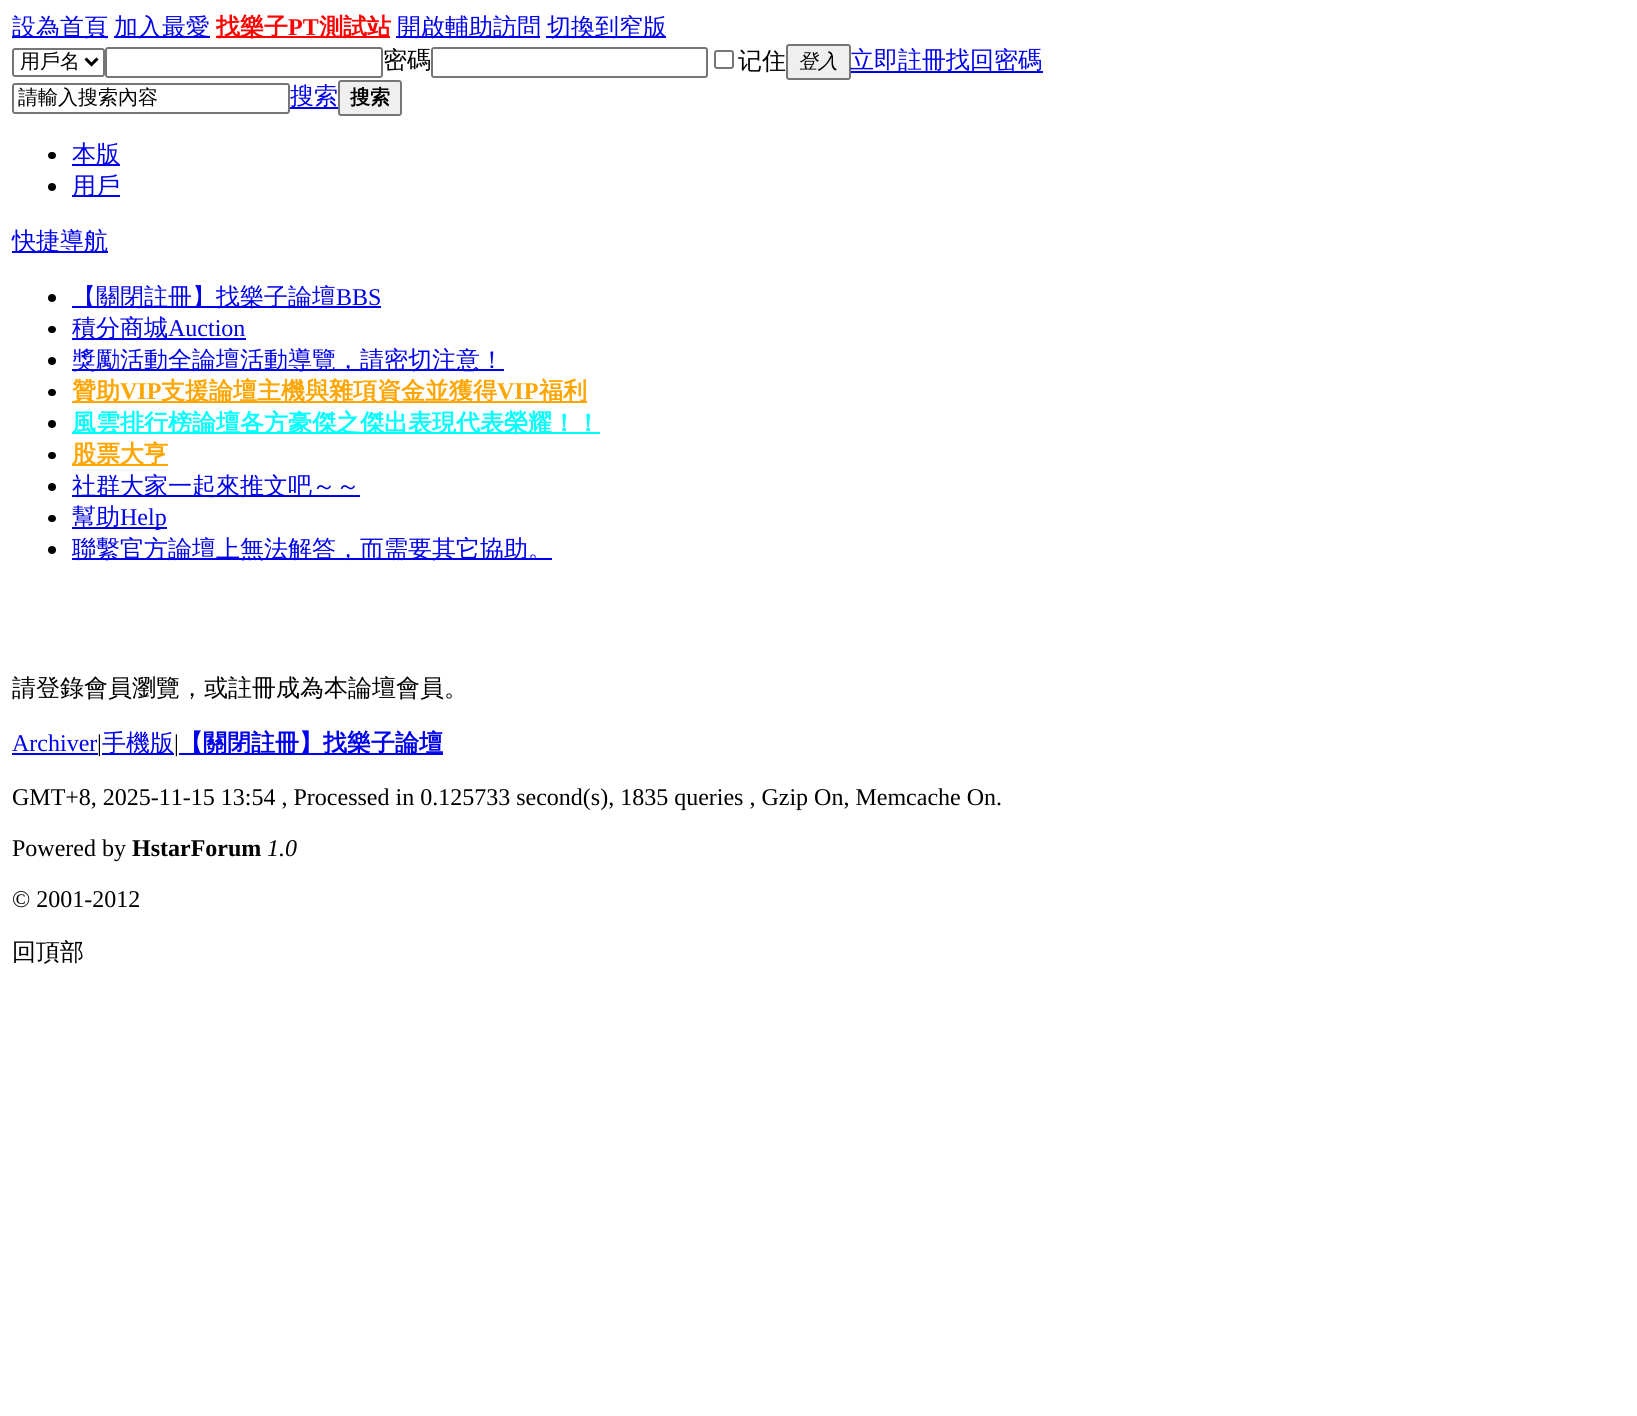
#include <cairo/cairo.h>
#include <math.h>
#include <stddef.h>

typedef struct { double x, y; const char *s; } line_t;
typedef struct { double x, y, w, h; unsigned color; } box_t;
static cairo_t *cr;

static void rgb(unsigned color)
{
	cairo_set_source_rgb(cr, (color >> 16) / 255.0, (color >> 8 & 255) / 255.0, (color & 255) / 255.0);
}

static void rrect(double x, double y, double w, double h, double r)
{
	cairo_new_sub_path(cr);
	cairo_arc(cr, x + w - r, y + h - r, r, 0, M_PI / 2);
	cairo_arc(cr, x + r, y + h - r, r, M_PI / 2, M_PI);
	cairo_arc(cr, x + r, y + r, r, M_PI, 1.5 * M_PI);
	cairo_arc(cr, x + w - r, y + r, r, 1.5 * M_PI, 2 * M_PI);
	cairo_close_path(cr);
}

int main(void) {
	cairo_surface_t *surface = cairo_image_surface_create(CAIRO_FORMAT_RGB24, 1637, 1416);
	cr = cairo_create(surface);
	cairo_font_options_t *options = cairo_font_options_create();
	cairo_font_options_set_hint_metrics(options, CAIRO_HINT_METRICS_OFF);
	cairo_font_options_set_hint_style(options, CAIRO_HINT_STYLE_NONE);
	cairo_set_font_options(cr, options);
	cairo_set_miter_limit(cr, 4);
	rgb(0xffffff);
	cairo_paint(cr);
	{
		static const box_t items[] = {
			{12, 36, 96, 2, 0x0000ee},
			{114, 36, 96, 2, 0x0000ee},
			{216, 36, 174, 2, 0xff0000},
			{396, 36, 144, 2, 0x0000ee},
			{546, 36, 120, 2, 0x0000ee},
		};
		for (size_t i = 0; i < sizeof items / sizeof *items; i++) {
			rgb(items[i].color);
			cairo_rectangle(cr, items[i].x, items[i].y, items[i].w, items[i].h);
			cairo_fill(cr);
		}
	}
	rrect(13, 49, 91, 27, 2);
	rgb(0x767676);
	cairo_stroke(cr);
	cairo_new_path(cr);
	cairo_move_to(cr, 85.5, 58.5);
	cairo_line_to(cr, 91.5, 64.5);
	cairo_line_to(cr, 97.5, 58.5);
	rgb(0x000000);
	cairo_set_line_width(cr, 3);
	cairo_stroke(cr);
	rrect(106, 48, 276, 29, 2);
	rgb(0x767676);
	cairo_set_line_width(cr, 2);
	cairo_stroke(cr);
	rrect(432, 48, 275, 29, 2);
	cairo_stroke(cr);
	rrect(715, 51, 18, 17, 2);
	cairo_stroke(cr);
	rgb(0xefefef);
	rrect(787, 45, 63, 34, 2);
	cairo_fill_preserve(cr);
	rgb(0x767676);
	cairo_stroke(cr);
	rgb(0x0000ee);
	cairo_rectangle(cr, 851, 71, 192, 2);
	cairo_fill(cr);
	rrect(13, 84, 276, 29, 2);
	rgb(0x767676);
	cairo_stroke(cr);
	rgb(0x0000ee);
	cairo_rectangle(cr, 290, 107, 48, 2);
	cairo_fill(cr);
	rgb(0xefefef);
	rrect(339, 81, 62, 34, 2);
	cairo_fill_preserve(cr);
	rgb(0x767676);
	cairo_stroke(cr);
	rgb(0x000000);
	rrect(48, 152, 8, 7, 3.5);
	cairo_fill(cr);
	rgb(0x0000ee);
	cairo_rectangle(cr, 72, 164, 48, 2);
	cairo_fill(cr);
	rgb(0x000000);
	cairo_arc(cr, 52, 187, 4, 0, 2 * M_PI);
	cairo_fill(cr);
	rgb(0x0000ee);
	cairo_rectangle(cr, 72, 195, 48, 2);
	cairo_fill(cr);
	cairo_rectangle(cr, 12, 251, 96, 2);
	cairo_fill(cr);
	rgb(0x000000);
	cairo_arc(cr, 52, 298, 4, 0, 2 * M_PI);
	cairo_fill(cr);
	rgb(0x0000ee);
	cairo_rectangle(cr, 72, 306, 309, 2);
	cairo_fill(cr);
	rgb(0x000000);
	rrect(48, 326, 8, 7, 3.5);
	cairo_fill(cr);
	rgb(0x0000ee);
	cairo_rectangle(cr, 72, 338, 174, 2);
	cairo_fill(cr);
	rgb(0x000000);
	cairo_arc(cr, 52, 361, 4, 0, 2 * M_PI);
	cairo_fill(cr);
	rgb(0x0000ee);
	cairo_rectangle(cr, 72, 369, 432, 2);
	cairo_fill(cr);
	rgb(0x000000);
	rrect(48, 389, 8, 7, 3.5);
	cairo_fill(cr);
	rgb(0xffa500);
	cairo_rectangle(cr, 72, 401, 515, 2);
	cairo_fill(cr);
	rgb(0x000000);
	cairo_arc(cr, 52, 424, 4, 0, 2 * M_PI);
	cairo_fill(cr);
	rgb(0x00ffff);
	cairo_rectangle(cr, 72, 432, 528, 2);
	cairo_fill(cr);
	rgb(0x000000);
	rrect(48, 452, 8, 7, 3.5);
	cairo_fill(cr);
	rgb(0xffa500);
	cairo_rectangle(cr, 72, 464, 96, 2);
	cairo_fill(cr);
	rgb(0x000000);
	cairo_arc(cr, 52, 487, 4, 0, 2 * M_PI);
	cairo_fill(cr);
	rgb(0x0000ee);
	cairo_rectangle(cr, 72, 495, 288, 2);
	cairo_fill(cr);
	rgb(0x000000);
	rrect(48, 515, 8, 7, 3.5);
	cairo_fill(cr);
	rgb(0x0000ee);
	cairo_rectangle(cr, 72, 527, 95, 2);
	cairo_fill(cr);
	rgb(0x000000);
	cairo_arc(cr, 52, 550, 4, 0, 2 * M_PI);
	cairo_fill(cr);
	{
		static const box_t items[] = {
			{72, 558, 480, 2, 0x0000ee},
			{12, 753, 86, 2, 0x0000ee},
			{102, 753, 72, 2, 0x0000ee},
			{179, 753, 264, 2, 0x0000ee},
		};
		for (size_t i = 0; i < sizeof items / sizeof *items; i++) {
			rgb(items[i].color);
			cairo_rectangle(cr, items[i].x, items[i].y, items[i].w, items[i].h);
			cairo_fill(cr);
		}
	}
	cairo_select_font_face(cr, "WenQuanYi Zen Hei Medium", CAIRO_FONT_SLANT_NORMAL, CAIRO_FONT_WEIGHT_NORMAL);
	cairo_set_font_size(cr, 24);
	cairo_move_to(cr, 12, 35);
	cairo_show_text(cr, "設為首頁");
	cairo_move_to(cr, 114, 35);
	cairo_show_text(cr, "加入最愛");
	cairo_select_font_face(cr, "WenQuanYi Zen Hei", CAIRO_FONT_SLANT_NORMAL, CAIRO_FONT_WEIGHT_BOLD);
	rgb(0xff0000);
	cairo_move_to(cr, 216, 35);
	cairo_show_text(cr, "找樂子");
	cairo_select_font_face(cr, "Liberation Serif", CAIRO_FONT_SLANT_NORMAL, CAIRO_FONT_WEIGHT_BOLD);
	cairo_move_to(cr, 288, 35);
	cairo_show_text(cr, "PT");
	cairo_select_font_face(cr, "WenQuanYi Zen Hei", CAIRO_FONT_SLANT_NORMAL, CAIRO_FONT_WEIGHT_BOLD);
	cairo_move_to(cr, 319, 35);
	cairo_show_text(cr, "測試站");
	cairo_select_font_face(cr, "WenQuanYi Zen Hei Medium", CAIRO_FONT_SLANT_NORMAL, CAIRO_FONT_WEIGHT_NORMAL);
	rgb(0x0000ee);
	cairo_move_to(cr, 397, 35);
	cairo_show_text(cr, "開啟輔助訪問");
	cairo_move_to(cr, 547, 35);
	cairo_show_text(cr, "切換到窄版");
	cairo_set_font_size(cr, 20);
	rgb(0x000000);
	cairo_move_to(cr, 20, 68);
	cairo_show_text(cr, "用戶名");
	cairo_set_font_size(cr, 24);
	cairo_move_to(cr, 383, 68);
	cairo_show_text(cr, "密碼");
	cairo_move_to(cr, 738, 69);
	cairo_show_text(cr, "记住");
	cairo_select_font_face(cr, "WenQuanYi Zen Hei Medium", CAIRO_FONT_SLANT_ITALIC, CAIRO_FONT_WEIGHT_NORMAL);
	cairo_set_font_size(cr, 20);
	cairo_move_to(cr, 798, 68);
	cairo_show_text(cr, "登入");
	cairo_select_font_face(cr, "WenQuanYi Zen Hei Medium", CAIRO_FONT_SLANT_NORMAL, CAIRO_FONT_WEIGHT_NORMAL);
	cairo_set_font_size(cr, 24);
	rgb(0x0000ee);
	cairo_move_to(cr, 850, 68);
	cairo_show_text(cr, "立即註冊找回密碼");
	cairo_set_font_size(cr, 20);
	rgb(0x000000);
	cairo_move_to(cr, 18, 104);
	cairo_show_text(cr, "請輸入搜索內容");
	cairo_set_font_size(cr, 24);
	rgb(0x0000ee);
	cairo_move_to(cr, 290, 104);
	cairo_show_text(cr, "搜索");
	cairo_select_font_face(cr, "WenQuanYi Zen Hei", CAIRO_FONT_SLANT_NORMAL, CAIRO_FONT_WEIGHT_BOLD);
	cairo_set_font_size(cr, 20);
	rgb(0x000000);
	cairo_move_to(cr, 350, 104);
	cairo_show_text(cr, "搜索");
	cairo_select_font_face(cr, "WenQuanYi Zen Hei Medium", CAIRO_FONT_SLANT_NORMAL, CAIRO_FONT_WEIGHT_NORMAL);
	cairo_set_font_size(cr, 24);
	rgb(0x0000ee);
	{
		static const line_t items[] = {
			{72, 162, "本版"},
			{72, 194, "用戶"},
			{12, 249, "快捷導航"},
			{72, 305, "【關閉註冊】找樂子論壇"},
		};
		for (size_t i = 0; i < sizeof items / sizeof *items; i++) {
			cairo_move_to(cr, items[i].x, items[i].y);
			cairo_show_text(cr, items[i].s);
		}
	}
	cairo_select_font_face(cr, "Liberation Serif", CAIRO_FONT_SLANT_NORMAL, CAIRO_FONT_WEIGHT_NORMAL);
	cairo_move_to(cr, 336, 305);
	cairo_show_text(cr, "BBS");
	cairo_select_font_face(cr, "WenQuanYi Zen Hei Medium", CAIRO_FONT_SLANT_NORMAL, CAIRO_FONT_WEIGHT_NORMAL);
	cairo_move_to(cr, 72, 336);
	cairo_show_text(cr, "積分商城");
	cairo_select_font_face(cr, "Liberation Serif", CAIRO_FONT_SLANT_NORMAL, CAIRO_FONT_WEIGHT_NORMAL);
	cairo_move_to(cr, 168, 336);
	cairo_show_text(cr, "Auction");
	cairo_select_font_face(cr, "WenQuanYi Zen Hei Medium", CAIRO_FONT_SLANT_NORMAL, CAIRO_FONT_WEIGHT_NORMAL);
	cairo_move_to(cr, 72, 368);
	cairo_show_text(cr, "獎勵活動全論壇活動導覽，請密切注意！");
	cairo_select_font_face(cr, "WenQuanYi Zen Hei", CAIRO_FONT_SLANT_NORMAL, CAIRO_FONT_WEIGHT_BOLD);
	rgb(0xffa500);
	cairo_move_to(cr, 72, 399);
	cairo_show_text(cr, "贊助");
	cairo_select_font_face(cr, "Liberation Serif", CAIRO_FONT_SLANT_NORMAL, CAIRO_FONT_WEIGHT_BOLD);
	cairo_move_to(cr, 120, 399);
	cairo_show_text(cr, "VIP");
	cairo_select_font_face(cr, "WenQuanYi Zen Hei", CAIRO_FONT_SLANT_NORMAL, CAIRO_FONT_WEIGHT_BOLD);
	cairo_move_to(cr, 161, 399);
	cairo_show_text(cr, "支援論壇主機與雜項資金並獲得");
	cairo_select_font_face(cr, "Liberation Serif", CAIRO_FONT_SLANT_NORMAL, CAIRO_FONT_WEIGHT_BOLD);
	cairo_move_to(cr, 497, 399);
	cairo_show_text(cr, "VIP");
	cairo_select_font_face(cr, "WenQuanYi Zen Hei", CAIRO_FONT_SLANT_NORMAL, CAIRO_FONT_WEIGHT_BOLD);
	cairo_move_to(cr, 539, 399);
	cairo_show_text(cr, "福利");
	rgb(0x00ffff);
	cairo_move_to(cr, 72, 431);
	cairo_show_text(cr, "風雲排行榜論壇各方豪傑之傑出表現代表榮耀！！");
	rgb(0xffa500);
	cairo_move_to(cr, 72, 462);
	cairo_show_text(cr, "股票大亨");
	cairo_select_font_face(cr, "WenQuanYi Zen Hei Medium", CAIRO_FONT_SLANT_NORMAL, CAIRO_FONT_WEIGHT_NORMAL);
	rgb(0x0000ee);
	cairo_move_to(cr, 72, 494);
	cairo_show_text(cr, "社群大家一起來推文吧～～");
	cairo_move_to(cr, 72, 525);
	cairo_show_text(cr, "幫助");
	cairo_select_font_face(cr, "Liberation Serif", CAIRO_FONT_SLANT_NORMAL, CAIRO_FONT_WEIGHT_NORMAL);
	cairo_move_to(cr, 120, 525);
	cairo_show_text(cr, "Help");
	cairo_select_font_face(cr, "WenQuanYi Zen Hei Medium", CAIRO_FONT_SLANT_NORMAL, CAIRO_FONT_WEIGHT_NORMAL);
	cairo_move_to(cr, 72, 557);
	cairo_show_text(cr, "聯繫官方論壇上無法解答，而需要其它協助。");
	rgb(0x000000);
	cairo_move_to(cr, 12, 696);
	cairo_show_text(cr, "請登錄會員瀏覽，或註冊成為本論壇會員。");
	cairo_select_font_face(cr, "Liberation Serif", CAIRO_FONT_SLANT_NORMAL, CAIRO_FONT_WEIGHT_NORMAL);
	rgb(0x0000ee);
	cairo_move_to(cr, 12, 751);
	cairo_show_text(cr, "Archiver");
	rgb(0x000000);
	cairo_move_to(cr, 97, 751);
	cairo_show_text(cr, "|");
	cairo_select_font_face(cr, "WenQuanYi Zen Hei Medium", CAIRO_FONT_SLANT_NORMAL, CAIRO_FONT_WEIGHT_NORMAL);
	rgb(0x0000ee);
	cairo_move_to(cr, 102, 751);
	cairo_show_text(cr, "手機版");
	cairo_select_font_face(cr, "Liberation Serif", CAIRO_FONT_SLANT_NORMAL, CAIRO_FONT_WEIGHT_NORMAL);
	rgb(0x000000);
	cairo_move_to(cr, 174, 751);
	cairo_show_text(cr, "|");
	cairo_select_font_face(cr, "WenQuanYi Zen Hei", CAIRO_FONT_SLANT_NORMAL, CAIRO_FONT_WEIGHT_BOLD);
	rgb(0x0000ee);
	cairo_move_to(cr, 179, 751);
	cairo_show_text(cr, "【關閉註冊】找樂子論壇");
	cairo_select_font_face(cr, "Liberation Serif", CAIRO_FONT_SLANT_NORMAL, CAIRO_FONT_WEIGHT_NORMAL);
	rgb(0x000000);
	cairo_move_to(cr, 12, 805);
	cairo_show_text(cr, "GMT+8, 2025-11-15 13:54 , Processed in 0.125733 second(s), 1835 queries , Gzip On, Memcache On.");
	cairo_move_to(cr, 12, 856);
	cairo_show_text(cr, "Powered by");
	cairo_select_font_face(cr, "Liberation Serif", CAIRO_FONT_SLANT_NORMAL, CAIRO_FONT_WEIGHT_BOLD);
	cairo_move_to(cr, 132, 856);
	cairo_show_text(cr, "HstarForum");
	cairo_select_font_face(cr, "Liberation Serif", CAIRO_FONT_SLANT_ITALIC, CAIRO_FONT_WEIGHT_NORMAL);
	cairo_move_to(cr, 267, 856);
	cairo_show_text(cr, "1.0");
	cairo_select_font_face(cr, "Liberation Serif", CAIRO_FONT_SLANT_NORMAL, CAIRO_FONT_WEIGHT_NORMAL);
	cairo_move_to(cr, 12, 907);
	cairo_show_text(cr, "© 2001-2012");
	cairo_select_font_face(cr, "WenQuanYi Zen Hei Medium", CAIRO_FONT_SLANT_NORMAL, CAIRO_FONT_WEIGHT_NORMAL);
	cairo_move_to(cr, 12, 960);
	cairo_show_text(cr, "回頂部");
	cairo_surface_write_to_png(surface, "page.png");
	cairo_font_options_destroy(options);
	cairo_destroy(cr);
	cairo_surface_destroy(surface);
	return 0;
}
